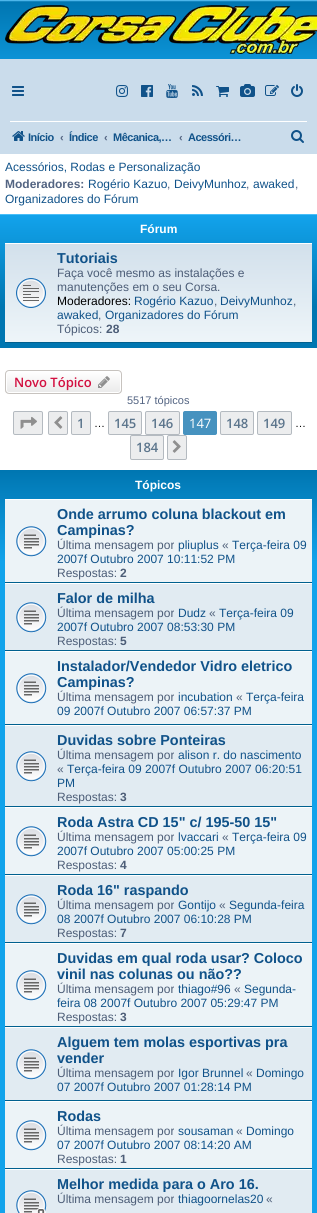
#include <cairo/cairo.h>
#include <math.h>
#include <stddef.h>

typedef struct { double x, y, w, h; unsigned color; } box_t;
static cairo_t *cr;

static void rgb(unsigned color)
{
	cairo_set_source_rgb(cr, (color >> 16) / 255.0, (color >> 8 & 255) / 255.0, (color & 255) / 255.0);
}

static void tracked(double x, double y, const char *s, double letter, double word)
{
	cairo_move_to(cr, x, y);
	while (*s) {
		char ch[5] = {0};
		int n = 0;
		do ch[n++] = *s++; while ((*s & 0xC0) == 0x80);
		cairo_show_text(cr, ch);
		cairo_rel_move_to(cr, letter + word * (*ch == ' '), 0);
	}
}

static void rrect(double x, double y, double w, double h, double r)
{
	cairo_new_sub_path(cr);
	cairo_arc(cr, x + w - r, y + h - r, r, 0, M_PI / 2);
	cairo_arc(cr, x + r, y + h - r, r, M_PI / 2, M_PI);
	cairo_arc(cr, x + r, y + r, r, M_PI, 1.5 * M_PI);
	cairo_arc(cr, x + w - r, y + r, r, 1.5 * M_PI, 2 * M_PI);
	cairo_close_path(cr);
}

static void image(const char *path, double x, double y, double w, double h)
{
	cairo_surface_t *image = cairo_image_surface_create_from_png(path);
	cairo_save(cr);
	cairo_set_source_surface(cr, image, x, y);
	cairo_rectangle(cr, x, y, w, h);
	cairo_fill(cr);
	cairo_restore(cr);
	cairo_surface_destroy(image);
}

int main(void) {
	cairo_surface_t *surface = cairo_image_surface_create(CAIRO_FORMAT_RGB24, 317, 1213);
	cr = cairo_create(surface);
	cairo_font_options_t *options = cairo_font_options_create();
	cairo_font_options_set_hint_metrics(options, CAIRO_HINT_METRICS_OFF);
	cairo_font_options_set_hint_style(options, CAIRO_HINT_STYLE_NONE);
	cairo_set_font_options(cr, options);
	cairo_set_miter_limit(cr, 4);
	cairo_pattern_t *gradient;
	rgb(0xffffff);
	cairo_paint(cr);
	gradient = cairo_pattern_create_linear(159, 0, 159, 92);
	cairo_pattern_add_color_stop_rgba(gradient, 0, 0.416, 0.808, 1, 1);
	cairo_pattern_add_color_stop_rgba(gradient, 0.02, 0, 0.463, 0.694, 1);
	cairo_pattern_add_color_stop_rgba(gradient, 1, 0.071, 0.639, 0.922, 1);
	cairo_set_source(cr, gradient);
	cairo_pattern_destroy(gradient);
	cairo_rectangle(cr, 0, 0, 317, 59);
	cairo_fill(cr);
	image("img/1.png", 5, 5, 312, 50);
	rgb(0xcadceb);
	cairo_rectangle(cr, 0, 59, 317, 95);
	cairo_fill(cr);
	image("img/2.png", 12, 86, 12, 10);
	image("img/3.png", 116, 85, 12, 12);
	image("img/4.png", 141, 85, 12, 12);
	image("img/5.png", 166, 84, 12, 14);
	image("img/6.png", 192, 85, 11, 11);
	image("img/7.png", 216, 86, 13, 11);
	image("img/8.png", 240, 84, 15, 13);
	image("img/9.png", 265, 85, 14, 11);
	image("img/10.png", 291, 84, 12, 13);
	rgb(0xffffff);
	cairo_rectangle(cr, 10, 121, 297, 1);
	cairo_fill(cr);
	image("img/11.png", 12, 131, 13, 10);
	image("img/12.png", 291, 130, 13, 13);
	gradient = cairo_pattern_create_linear(159, 214, 159, 348);
	cairo_pattern_add_color_stop_rgba(gradient, 0, 0.416, 0.808, 1, 1);
	cairo_pattern_add_color_stop_rgba(gradient, 0.01, 0.071, 0.639, 0.922, 1);
	cairo_pattern_add_color_stop_rgba(gradient, 0.69, 0, 0.463, 0.694, 1);
	cairo_pattern_add_color_stop_rgba(gradient, 1, 0, 0.463, 0.694, 1);
	cairo_set_source(cr, gradient);
	cairo_pattern_destroy(gradient);
	cairo_rectangle(cr, 0, 214, 317, 134);
	cairo_fill(cr);
	gradient = cairo_pattern_create_linear(159, 243, 159, 343);
	cairo_pattern_add_color_stop_rgba(gradient, 0, 0.824, 0.878, 0.922, 1);
	cairo_pattern_add_color_stop_rgba(gradient, 1, 0.933, 0.961, 0.976, 1);
	cairo_set_source(cr, gradient);
	cairo_pattern_destroy(gradient);
	cairo_rectangle(cr, 5, 244, 307, 98);
	cairo_fill(cr);
	rgb(0xffffff);
	cairo_rectangle(cr, 5, 243, 307, 1);
	cairo_fill(cr);
	rgb(0x00608f);
	cairo_rectangle(cr, 5, 342, 307, 1);
	cairo_fill(cr);
	image("img/13.png", 16, 278, 30, 30);
	cairo_save(cr);
	rrect(5, 370, 117, 24, 4);
	cairo_clip(cr);
	gradient = cairo_pattern_create_linear(64, 371, 64, 393);
	cairo_pattern_add_color_stop_rgba(gradient, 0, 1, 1, 1, 1);
	cairo_pattern_add_color_stop_rgba(gradient, 1, 0.914, 0.914, 0.914, 1);
	cairo_set_source(cr, gradient);
	cairo_pattern_destroy(gradient);
	cairo_rectangle(cr, 5, 371, 117, 22);
	cairo_fill(cr);
	cairo_restore(cr);
	rrect(6.5, 371.5, 114, 21, 2.5);
	rgb(0xffffff);
	cairo_set_line_width(cr, 1);
	cairo_stroke(cr);
	rrect(5.5, 370.5, 116, 23, 3.5);
	rgb(0xc7c3bf);
	cairo_stroke(cr);
	image("img/14.png", 98, 376, 12, 12);
	rgb(0xecedee);
	rrect(13.5, 411.5, 29, 23, 1.5);
	cairo_fill_preserve(cr);
	rgb(0xb4bac0);
	cairo_stroke(cr);
	image("img/15.png", 20, 416, 17, 13);
	rgb(0xecedee);
	rrect(48.5, 411.5, 19, 23, 1.5);
	cairo_fill_preserve(cr);
	rgb(0xb4bac0);
	cairo_stroke(cr);
	image("img/16.png", 54, 416, 9, 13);
	rgb(0xecedee);
	rrect(71.5, 411.5, 19, 23, 1.5);
	cairo_fill_preserve(cr);
	rgb(0xb4bac0);
	cairo_stroke(cr);
	rgb(0xecedee);
	rrect(108.5, 411.5, 33, 23, 1.5);
	cairo_fill_preserve(cr);
	rgb(0xb4bac0);
	cairo_stroke(cr);
	rgb(0xecedee);
	rrect(145.5, 411.5, 34, 23, 1.5);
	cairo_fill_preserve(cr);
	rgb(0xb4bac0);
	cairo_stroke(cr);
	rgb(0x4692bf);
	rrect(183.5, 411.5, 33, 23, 1.5);
	cairo_fill_preserve(cr);
	cairo_stroke(cr);
	rgb(0xecedee);
	rrect(220.5, 411.5, 33, 23, 1.5);
	cairo_fill_preserve(cr);
	rgb(0xb4bac0);
	cairo_stroke(cr);
	rgb(0xecedee);
	rrect(257.5, 411.5, 34, 23, 1.5);
	cairo_fill_preserve(cr);
	rgb(0xb4bac0);
	cairo_stroke(cr);
	rgb(0xecedee);
	rrect(130.5, 435.5, 33, 24, 1.5);
	cairo_fill_preserve(cr);
	rgb(0xb4bac0);
	cairo_stroke(cr);
	rgb(0xecedee);
	rrect(167.5, 435.5, 19, 24, 1.5);
	cairo_fill_preserve(cr);
	rgb(0xb4bac0);
	cairo_stroke(cr);
	image("img/17.png", 172, 440, 9, 13);
	gradient = cairo_pattern_create_linear(158, 470, 159, 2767);
	cairo_pattern_add_color_stop_rgba(gradient, 0, 0.416, 0.808, 1, 1);
	cairo_pattern_add_color_stop_rgba(gradient, 0, 0, 0.463, 0.694, 1);
	cairo_pattern_add_color_stop_rgba(gradient, 0.04, 0.071, 0.639, 0.922, 1);
	cairo_pattern_add_color_stop_rgba(gradient, 1, 0.071, 0.639, 0.922, 1);
	cairo_set_source(cr, gradient);
	cairo_pattern_destroy(gradient);
	cairo_rectangle(cr, 0, 470, 317, 743);
	cairo_fill(cr);
	{
		static const box_t items[] = {
			{5, 500, 307, 82, 0xecf3f7},
			{5, 499, 307, 1, 0xffffff},
			{5, 582, 307, 1, 0x00608f},
		};
		for (size_t i = 0; i < sizeof items / sizeof *items; i++) {
			rgb(items[i].color);
			cairo_rectangle(cr, items[i].x, items[i].y, items[i].w, items[i].h);
			cairo_fill(cr);
		}
	}
	image("img/18.png", 16, 526, 31, 31);
	{
		static const box_t items[] = {
			{5, 584, 307, 66, 0xe1ebf2},
			{5, 583, 307, 1, 0xffffff},
			{5, 650, 307, 1, 0x00608f},
		};
		for (size_t i = 0; i < sizeof items / sizeof *items; i++) {
			rgb(items[i].color);
			cairo_rectangle(cr, items[i].x, items[i].y, items[i].w, items[i].h);
			cairo_fill(cr);
		}
	}
	image("img/19.png", 16, 602, 31, 31);
	{
		static const box_t items[] = {
			{5, 652, 307, 72, 0xecf3f7},
			{5, 651, 307, 1, 0xffffff},
			{5, 724, 307, 1, 0x00608f},
		};
		for (size_t i = 0; i < sizeof items / sizeof *items; i++) {
			rgb(items[i].color);
			cairo_rectangle(cr, items[i].x, items[i].y, items[i].w, items[i].h);
			cairo_fill(cr);
		}
	}
	image("img/18.png", 16, 673, 31, 31);
	{
		static const box_t items[] = {
			{5, 726, 307, 80, 0xe1ebf2},
			{5, 725, 307, 1, 0xffffff},
			{5, 806, 307, 1, 0x00608f},
		};
		for (size_t i = 0; i < sizeof items / sizeof *items; i++) {
			rgb(items[i].color);
			cairo_rectangle(cr, items[i].x, items[i].y, items[i].w, items[i].h);
			cairo_fill(cr);
		}
	}
	image("img/19.png", 16, 751, 31, 31);
	{
		static const box_t items[] = {
			{5, 808, 307, 66, 0xecf3f7},
			{5, 807, 307, 1, 0xffffff},
			{5, 874, 307, 1, 0x00608f},
		};
		for (size_t i = 0; i < sizeof items / sizeof *items; i++) {
			rgb(items[i].color);
			cairo_rectangle(cr, items[i].x, items[i].y, items[i].w, items[i].h);
			cairo_fill(cr);
		}
	}
	image("img/18.png", 16, 826, 31, 31);
	{
		static const box_t items[] = {
			{5, 876, 307, 66, 0xe1ebf2},
			{5, 875, 307, 1, 0xffffff},
			{5, 942, 307, 1, 0x00608f},
		};
		for (size_t i = 0; i < sizeof items / sizeof *items; i++) {
			rgb(items[i].color);
			cairo_rectangle(cr, items[i].x, items[i].y, items[i].w, items[i].h);
			cairo_fill(cr);
		}
	}
	image("img/19.png", 16, 894, 31, 31);
	{
		static const box_t items[] = {
			{5, 944, 307, 82, 0xecf3f7},
			{5, 943, 307, 1, 0xffffff},
			{5, 1026, 307, 1, 0x00608f},
		};
		for (size_t i = 0; i < sizeof items / sizeof *items; i++) {
			rgb(items[i].color);
			cairo_rectangle(cr, items[i].x, items[i].y, items[i].w, items[i].h);
			cairo_fill(cr);
		}
	}
	image("img/18.png", 16, 970, 31, 31);
	{
		static const box_t items[] = {
			{5, 1028, 307, 72, 0xe1ebf2},
			{5, 1027, 307, 1, 0xffffff},
			{5, 1100, 307, 1, 0x00608f},
		};
		for (size_t i = 0; i < sizeof items / sizeof *items; i++) {
			rgb(items[i].color);
			cairo_rectangle(cr, items[i].x, items[i].y, items[i].w, items[i].h);
			cairo_fill(cr);
		}
	}
	image("img/19.png", 16, 1049, 31, 31);
	{
		static const box_t items[] = {
			{5, 1102, 307, 66, 0xecf3f7},
			{5, 1101, 307, 1, 0xffffff},
			{5, 1168, 307, 1, 0x00608f},
		};
		for (size_t i = 0; i < sizeof items / sizeof *items; i++) {
			rgb(items[i].color);
			cairo_rectangle(cr, items[i].x, items[i].y, items[i].w, items[i].h);
			cairo_fill(cr);
		}
	}
	image("img/18.png", 16, 1120, 31, 31);
	rgb(0xe1ebf2);
	cairo_rectangle(cr, 5, 1170, 307, 43);
	cairo_fill(cr);
	rgb(0xffffff);
	cairo_rectangle(cr, 5, 1169, 307, 1);
	cairo_fill(cr);
	image("img/20.png", 16, 1190, 31, 23);
	cairo_select_font_face(cr, "Liberation Sans", CAIRO_FONT_SLANT_NORMAL, CAIRO_FONT_WEIGHT_BOLD);
	cairo_set_font_size(cr, 11);
	rgb(0x105289);
	tracked(28, 141, "Início", -0.5, 0);
	rgb(0x536482);
	cairo_move_to(cr, 60, 141);
	cairo_show_text(cr, "‹");
	cairo_save(cr);
	cairo_rectangle(cr, 69, 125, 29, 24);
	cairo_clip(cr);
	rgb(0x105289);
	tracked(69, 141, "Índice", -0.5, 0);
	cairo_restore(cr);
	cairo_move_to(cr, 104, 141);
	cairo_show_text(cr, "‹");
	rgb(0x105289);
	tracked(113, 141, "Mêcanica,…", -0.5, 0);
	rgb(0x536482);
	cairo_move_to(cr, 179, 141);
	cairo_show_text(cr, "‹");
	rgb(0x105289);
	tracked(188, 141, "Acessóri…", -0.5, 0);
	cairo_select_font_face(cr, "Liberation Sans", CAIRO_FONT_SLANT_NORMAL, CAIRO_FONT_WEIGHT_NORMAL);
	cairo_set_font_size(cr, 12);
	cairo_move_to(cr, 5, 171);
	cairo_show_text(cr, "Acessórios, Rodas e Personalização");
	cairo_select_font_face(cr, "Liberation Sans", CAIRO_FONT_SLANT_NORMAL, CAIRO_FONT_WEIGHT_BOLD);
	rgb(0x536482);
	cairo_move_to(cr, 5, 188);
	cairo_show_text(cr, "Moderadores:");
	cairo_select_font_face(cr, "Liberation Sans", CAIRO_FONT_SLANT_NORMAL, CAIRO_FONT_WEIGHT_NORMAL);
	rgb(0x105289);
	cairo_move_to(cr, 88, 188);
	cairo_show_text(cr, "Rogério Kazuo");
	rgb(0x536482);
	cairo_move_to(cr, 167, 188);
	cairo_show_text(cr, ",");
	rgb(0x105289);
	cairo_move_to(cr, 174, 188);
	cairo_show_text(cr, "DeivyMunhoz");
	rgb(0x536482);
	cairo_move_to(cr, 246, 188);
	cairo_show_text(cr, ",");
	rgb(0x105289);
	cairo_move_to(cr, 253, 188);
	cairo_show_text(cr, "awaked");
	rgb(0x536482);
	cairo_move_to(cr, 295, 188);
	cairo_show_text(cr, ",");
	rgb(0x105289);
	cairo_move_to(cr, 5, 203);
	cairo_show_text(cr, "Organizadores do Fórum");
	cairo_select_font_face(cr, "Liberation Sans", CAIRO_FONT_SLANT_NORMAL, CAIRO_FONT_WEIGHT_BOLD);
	rgb(0xffffff);
	cairo_move_to(cr, 140, 233);
	cairo_show_text(cr, "Fórum");
	cairo_set_font_size(cr, 14.4);
	rgb(0x105289);
	cairo_move_to(cr, 57, 263);
	cairo_show_text(cr, "Tutoriais");
	cairo_select_font_face(cr, "Liberation Sans", CAIRO_FONT_SLANT_NORMAL, CAIRO_FONT_WEIGHT_NORMAL);
	cairo_set_font_size(cr, 12);
	rgb(0x4c5d77);
	cairo_move_to(cr, 57, 277);
	cairo_show_text(cr, "Faça você mesmo as instalações e");
	cairo_move_to(cr, 57, 291);
	cairo_show_text(cr, "manutenções em o seu Corsa.");
	rgb(0x000000);
	cairo_move_to(cr, 57, 305);
	cairo_show_text(cr, "Moderadores:");
	rgb(0x105289);
	cairo_move_to(cr, 134, 305);
	cairo_show_text(cr, "Rogério Kazuo");
	rgb(0x4c5d77);
	cairo_move_to(cr, 214, 305);
	cairo_show_text(cr, ",");
	rgb(0x105289);
	cairo_move_to(cr, 220, 305);
	cairo_show_text(cr, "DeivyMunhoz");
	rgb(0x4c5d77);
	cairo_move_to(cr, 293, 305);
	cairo_show_text(cr, ",");
	rgb(0x105289);
	cairo_move_to(cr, 57, 319);
	cairo_show_text(cr, "awaked");
	rgb(0x4c5d77);
	cairo_move_to(cr, 98, 319);
	cairo_show_text(cr, ",");
	rgb(0x105289);
	cairo_move_to(cr, 105, 319);
	cairo_show_text(cr, "Organizadores do Fórum");
	rgb(0x4c5d77);
	cairo_move_to(cr, 57, 333);
	cairo_show_text(cr, "Tópicos:");
	cairo_select_font_face(cr, "Liberation Sans", CAIRO_FONT_SLANT_NORMAL, CAIRO_FONT_WEIGHT_BOLD);
	cairo_move_to(cr, 106, 333);
	cairo_show_text(cr, "28");
	cairo_select_font_face(cr, "Open Sans SemiBold", CAIRO_FONT_SLANT_NORMAL, CAIRO_FONT_WEIGHT_NORMAL);
	cairo_set_font_size(cr, 13);
	rgb(0xd31141);
	cairo_move_to(cr, 14, 387);
	cairo_show_text(cr, "Novo Tópico");
	cairo_select_font_face(cr, "Liberation Sans", CAIRO_FONT_SLANT_NORMAL, CAIRO_FONT_WEIGHT_NORMAL);
	cairo_set_font_size(cr, 11);
	rgb(0x536482);
	cairo_move_to(cr, 127, 404);
	cairo_show_text(cr, "5517 tópicos");
	cairo_select_font_face(cr, "Open Sans SemiBold", CAIRO_FONT_SLANT_NORMAL, CAIRO_FONT_WEIGHT_NORMAL);
	cairo_set_font_size(cr, 13);
	rgb(0x5c758c);
	cairo_move_to(cr, 77, 428);
	cairo_show_text(cr, "1");
	cairo_select_font_face(cr, "Liberation Sans", CAIRO_FONT_SLANT_NORMAL, CAIRO_FONT_WEIGHT_NORMAL);
	cairo_set_font_size(cr, 11);
	rgb(0x000000);
	cairo_move_to(cr, 94, 427);
	cairo_show_text(cr, "…");
	cairo_select_font_face(cr, "Open Sans SemiBold", CAIRO_FONT_SLANT_NORMAL, CAIRO_FONT_WEIGHT_NORMAL);
	cairo_set_font_size(cr, 13);
	rgb(0x5c758c);
	cairo_move_to(cr, 114, 428);
	cairo_show_text(cr, "145");
	cairo_move_to(cr, 151, 428);
	cairo_show_text(cr, "146");
	cairo_select_font_face(cr, "Open Sans", CAIRO_FONT_SLANT_NORMAL, CAIRO_FONT_WEIGHT_NORMAL);
	rgb(0xffffff);
	cairo_move_to(cr, 189, 428);
	cairo_show_text(cr, "147");
	cairo_select_font_face(cr, "Open Sans SemiBold", CAIRO_FONT_SLANT_NORMAL, CAIRO_FONT_WEIGHT_NORMAL);
	rgb(0x5c758c);
	cairo_move_to(cr, 226, 428);
	cairo_show_text(cr, "148");
	cairo_move_to(cr, 263, 428);
	cairo_show_text(cr, "149");
	cairo_select_font_face(cr, "Liberation Sans", CAIRO_FONT_SLANT_NORMAL, CAIRO_FONT_WEIGHT_NORMAL);
	cairo_set_font_size(cr, 11);
	rgb(0x000000);
	cairo_move_to(cr, 295, 427);
	cairo_show_text(cr, "…");
	cairo_select_font_face(cr, "Open Sans SemiBold", CAIRO_FONT_SLANT_NORMAL, CAIRO_FONT_WEIGHT_NORMAL);
	cairo_set_font_size(cr, 13);
	rgb(0x5c758c);
	cairo_move_to(cr, 136, 452);
	cairo_show_text(cr, "184");
	cairo_select_font_face(cr, "Liberation Sans", CAIRO_FONT_SLANT_NORMAL, CAIRO_FONT_WEIGHT_BOLD);
	cairo_set_font_size(cr, 12);
	rgb(0xffffff);
	cairo_move_to(cr, 135, 489);
	cairo_show_text(cr, "Tópicos");
	cairo_set_font_size(cr, 14.4);
	rgb(0x105289);
	cairo_move_to(cr, 57, 519);
	cairo_show_text(cr, "Onde arrumo coluna blackout em");
	cairo_move_to(cr, 57, 535);
	cairo_show_text(cr, "Campinas?");
	cairo_select_font_face(cr, "Liberation Sans", CAIRO_FONT_SLANT_NORMAL, CAIRO_FONT_WEIGHT_NORMAL);
	cairo_set_font_size(cr, 12);
	rgb(0x4c5d77);
	cairo_move_to(cr, 57, 549);
	cairo_show_text(cr, "Última mensagem por");
	rgb(0x105289);
	cairo_move_to(cr, 178, 549);
	cairo_show_text(cr, "pliuplus");
	rgb(0x4c5d77);
	cairo_move_to(cr, 222, 549);
	cairo_show_text(cr, "«");
	rgb(0x105289);
	cairo_move_to(cr, 232, 549);
	cairo_show_text(cr, "Terça-feira 09");
	cairo_move_to(cr, 57, 563);
	cairo_show_text(cr, "2007f Outubro 2007 10:11:52 PM");
	rgb(0x4c5d77);
	cairo_move_to(cr, 57, 577);
	cairo_show_text(cr, "Respostas:");
	cairo_select_font_face(cr, "Liberation Sans", CAIRO_FONT_SLANT_NORMAL, CAIRO_FONT_WEIGHT_BOLD);
	cairo_move_to(cr, 120, 577);
	cairo_show_text(cr, "2");
	cairo_set_font_size(cr, 14.4);
	rgb(0x105289);
	cairo_move_to(cr, 57, 603);
	cairo_show_text(cr, "Falor de milha");
	cairo_select_font_face(cr, "Liberation Sans", CAIRO_FONT_SLANT_NORMAL, CAIRO_FONT_WEIGHT_NORMAL);
	cairo_set_font_size(cr, 12);
	rgb(0x4c5d77);
	cairo_move_to(cr, 57, 617);
	cairo_show_text(cr, "Última mensagem por");
	rgb(0x105289);
	cairo_move_to(cr, 178, 617);
	cairo_show_text(cr, "Dudz");
	rgb(0x4c5d77);
	cairo_move_to(cr, 209, 617);
	cairo_show_text(cr, "«");
	rgb(0x105289);
	cairo_move_to(cr, 219, 617);
	cairo_show_text(cr, "Terça-feira 09");
	cairo_move_to(cr, 57, 631);
	cairo_show_text(cr, "2007f Outubro 2007 08:53:30 PM");
	rgb(0x4c5d77);
	cairo_move_to(cr, 57, 645);
	cairo_show_text(cr, "Respostas:");
	cairo_select_font_face(cr, "Liberation Sans", CAIRO_FONT_SLANT_NORMAL, CAIRO_FONT_WEIGHT_BOLD);
	cairo_move_to(cr, 120, 645);
	cairo_show_text(cr, "5");
	cairo_set_font_size(cr, 14.4);
	rgb(0x105289);
	cairo_move_to(cr, 57, 671);
	cairo_show_text(cr, "Instalador/Vendedor Vidro eletrico");
	cairo_move_to(cr, 57, 687);
	cairo_show_text(cr, "Campinas?");
	cairo_select_font_face(cr, "Liberation Sans", CAIRO_FONT_SLANT_NORMAL, CAIRO_FONT_WEIGHT_NORMAL);
	cairo_set_font_size(cr, 12);
	rgb(0x4c5d77);
	cairo_move_to(cr, 57, 701);
	cairo_show_text(cr, "Última mensagem por");
	rgb(0x105289);
	cairo_move_to(cr, 178, 701);
	cairo_show_text(cr, "incubation");
	rgb(0x4c5d77);
	cairo_move_to(cr, 236, 701);
	cairo_show_text(cr, "«");
	rgb(0x105289);
	cairo_move_to(cr, 246, 701);
	cairo_show_text(cr, "Terça-feira");
	cairo_move_to(cr, 57, 715);
	cairo_show_text(cr, "09 2007f Outubro 2007 06:57:37 PM");
	cairo_select_font_face(cr, "Liberation Sans", CAIRO_FONT_SLANT_NORMAL, CAIRO_FONT_WEIGHT_BOLD);
	cairo_set_font_size(cr, 14.4);
	cairo_move_to(cr, 57, 745);
	cairo_show_text(cr, "Duvidas sobre Ponteiras");
	cairo_select_font_face(cr, "Liberation Sans", CAIRO_FONT_SLANT_NORMAL, CAIRO_FONT_WEIGHT_NORMAL);
	cairo_set_font_size(cr, 12);
	rgb(0x4c5d77);
	cairo_move_to(cr, 57, 759);
	cairo_show_text(cr, "Última mensagem por");
	rgb(0x105289);
	cairo_move_to(cr, 178, 759);
	cairo_show_text(cr, "alison r. do nascimento");
	rgb(0x4c5d77);
	cairo_move_to(cr, 57, 773);
	cairo_show_text(cr, "«");
	rgb(0x105289);
	cairo_move_to(cr, 67, 773);
	cairo_show_text(cr, "Terça-feira 09 2007f Outubro 2007 06:20:51");
	cairo_move_to(cr, 57, 787);
	cairo_show_text(cr, "PM");
	rgb(0x4c5d77);
	cairo_move_to(cr, 57, 801);
	cairo_show_text(cr, "Respostas:");
	cairo_select_font_face(cr, "Liberation Sans", CAIRO_FONT_SLANT_NORMAL, CAIRO_FONT_WEIGHT_BOLD);
	cairo_move_to(cr, 120, 801);
	cairo_show_text(cr, "3");
	cairo_set_font_size(cr, 14.4);
	rgb(0x105289);
	cairo_move_to(cr, 57, 827);
	cairo_show_text(cr, "Roda Astra CD 15\" c/ 195-50 15\"");
	cairo_select_font_face(cr, "Liberation Sans", CAIRO_FONT_SLANT_NORMAL, CAIRO_FONT_WEIGHT_NORMAL);
	cairo_set_font_size(cr, 12);
	rgb(0x4c5d77);
	cairo_move_to(cr, 57, 841);
	cairo_show_text(cr, "Última mensagem por");
	rgb(0x105289);
	cairo_move_to(cr, 178, 841);
	cairo_show_text(cr, "lvaccari");
	rgb(0x4c5d77);
	cairo_move_to(cr, 222, 841);
	cairo_show_text(cr, "«");
	rgb(0x105289);
	cairo_move_to(cr, 232, 841);
	cairo_show_text(cr, "Terça-feira 09");
	cairo_move_to(cr, 57, 855);
	cairo_show_text(cr, "2007f Outubro 2007 05:00:25 PM");
	rgb(0x4c5d77);
	cairo_move_to(cr, 57, 869);
	cairo_show_text(cr, "Respostas:");
	cairo_select_font_face(cr, "Liberation Sans", CAIRO_FONT_SLANT_NORMAL, CAIRO_FONT_WEIGHT_BOLD);
	cairo_move_to(cr, 120, 869);
	cairo_show_text(cr, "4");
	cairo_set_font_size(cr, 14.4);
	rgb(0x105289);
	cairo_move_to(cr, 57, 895);
	cairo_show_text(cr, "Roda 16\" raspando");
	cairo_select_font_face(cr, "Liberation Sans", CAIRO_FONT_SLANT_NORMAL, CAIRO_FONT_WEIGHT_NORMAL);
	cairo_set_font_size(cr, 12);
	rgb(0x4c5d77);
	cairo_move_to(cr, 57, 909);
	cairo_show_text(cr, "Última mensagem por");
	rgb(0x105289);
	cairo_move_to(cr, 178, 909);
	cairo_show_text(cr, "Gontijo");
	rgb(0x4c5d77);
	cairo_move_to(cr, 219, 909);
	cairo_show_text(cr, "«");
	rgb(0x105289);
	cairo_move_to(cr, 229, 909);
	cairo_show_text(cr, "Segunda-feira");
	cairo_move_to(cr, 57, 923);
	cairo_show_text(cr, "08 2007f Outubro 2007 06:10:28 PM");
	rgb(0x4c5d77);
	cairo_move_to(cr, 57, 937);
	cairo_show_text(cr, "Respostas:");
	cairo_select_font_face(cr, "Liberation Sans", CAIRO_FONT_SLANT_NORMAL, CAIRO_FONT_WEIGHT_BOLD);
	cairo_move_to(cr, 120, 937);
	cairo_show_text(cr, "7");
	cairo_set_font_size(cr, 14.4);
	rgb(0x105289);
	cairo_move_to(cr, 57, 963);
	cairo_show_text(cr, "Duvidas em qual roda usar? Coloco");
	cairo_move_to(cr, 57, 979);
	cairo_show_text(cr, "vinil nas colunas ou não?\077");
	cairo_select_font_face(cr, "Liberation Sans", CAIRO_FONT_SLANT_NORMAL, CAIRO_FONT_WEIGHT_NORMAL);
	cairo_set_font_size(cr, 12);
	rgb(0x4c5d77);
	cairo_move_to(cr, 57, 993);
	cairo_show_text(cr, "Última mensagem por");
	rgb(0x105289);
	cairo_move_to(cr, 178, 993);
	cairo_show_text(cr, "thiago#96");
	rgb(0x4c5d77);
	cairo_move_to(cr, 234, 993);
	cairo_show_text(cr, "«");
	rgb(0x105289);
	cairo_move_to(cr, 244, 993);
	cairo_show_text(cr, "Segunda-");
	cairo_move_to(cr, 57, 1007);
	cairo_show_text(cr, "feira 08 2007f Outubro 2007 05:29:47 PM");
	rgb(0x4c5d77);
	cairo_move_to(cr, 57, 1021);
	cairo_show_text(cr, "Respostas:");
	cairo_select_font_face(cr, "Liberation Sans", CAIRO_FONT_SLANT_NORMAL, CAIRO_FONT_WEIGHT_BOLD);
	cairo_move_to(cr, 120, 1021);
	cairo_show_text(cr, "3");
	cairo_set_font_size(cr, 14.4);
	rgb(0x105289);
	cairo_move_to(cr, 57, 1047);
	cairo_show_text(cr, "Alguem tem molas esportivas pra");
	cairo_move_to(cr, 57, 1063);
	cairo_show_text(cr, "vender");
	cairo_select_font_face(cr, "Liberation Sans", CAIRO_FONT_SLANT_NORMAL, CAIRO_FONT_WEIGHT_NORMAL);
	cairo_set_font_size(cr, 12);
	rgb(0x4c5d77);
	cairo_move_to(cr, 57, 1077);
	cairo_show_text(cr, "Última mensagem por");
	rgb(0x105289);
	cairo_move_to(cr, 178, 1077);
	cairo_show_text(cr, "Igor Brunnel");
	rgb(0x4c5d77);
	cairo_move_to(cr, 246, 1077);
	cairo_show_text(cr, "«");
	rgb(0x105289);
	cairo_move_to(cr, 256, 1077);
	cairo_show_text(cr, "Domingo");
	cairo_move_to(cr, 57, 1091);
	cairo_show_text(cr, "07 2007f Outubro 2007 01:28:14 PM");
	cairo_select_font_face(cr, "Liberation Sans", CAIRO_FONT_SLANT_NORMAL, CAIRO_FONT_WEIGHT_BOLD);
	cairo_set_font_size(cr, 14.4);
	cairo_move_to(cr, 57, 1121);
	cairo_show_text(cr, "Rodas");
	cairo_select_font_face(cr, "Liberation Sans", CAIRO_FONT_SLANT_NORMAL, CAIRO_FONT_WEIGHT_NORMAL);
	cairo_set_font_size(cr, 12);
	rgb(0x4c5d77);
	cairo_move_to(cr, 57, 1135);
	cairo_show_text(cr, "Última mensagem por");
	rgb(0x105289);
	cairo_move_to(cr, 178, 1135);
	cairo_show_text(cr, "sousaman");
	rgb(0x4c5d77);
	cairo_move_to(cr, 236, 1135);
	cairo_show_text(cr, "«");
	rgb(0x105289);
	cairo_move_to(cr, 246, 1135);
	cairo_show_text(cr, "Domingo");
	cairo_move_to(cr, 57, 1149);
	cairo_show_text(cr, "07 2007f Outubro 2007 08:14:20 AM");
	rgb(0x4c5d77);
	cairo_move_to(cr, 57, 1163);
	cairo_show_text(cr, "Respostas:");
	cairo_select_font_face(cr, "Liberation Sans", CAIRO_FONT_SLANT_NORMAL, CAIRO_FONT_WEIGHT_BOLD);
	cairo_move_to(cr, 120, 1163);
	cairo_show_text(cr, "1");
	cairo_set_font_size(cr, 14.4);
	rgb(0x105289);
	cairo_move_to(cr, 57, 1189);
	cairo_show_text(cr, "Melhor medida para o Aro 16.");
	cairo_select_font_face(cr, "Liberation Sans", CAIRO_FONT_SLANT_NORMAL, CAIRO_FONT_WEIGHT_NORMAL);
	cairo_set_font_size(cr, 12);
	rgb(0x4c5d77);
	cairo_move_to(cr, 57, 1203);
	cairo_show_text(cr, "Última mensagem por");
	rgb(0x105289);
	cairo_move_to(cr, 178, 1203);
	cairo_show_text(cr, "thiagoornelas20");
	rgb(0x4c5d77);
	cairo_move_to(cr, 266, 1203);
	cairo_show_text(cr, "«");
	cairo_surface_write_to_png(surface, "page.png");
	cairo_font_options_destroy(options);
	cairo_destroy(cr);
	cairo_surface_destroy(surface);
	return 0;
}
